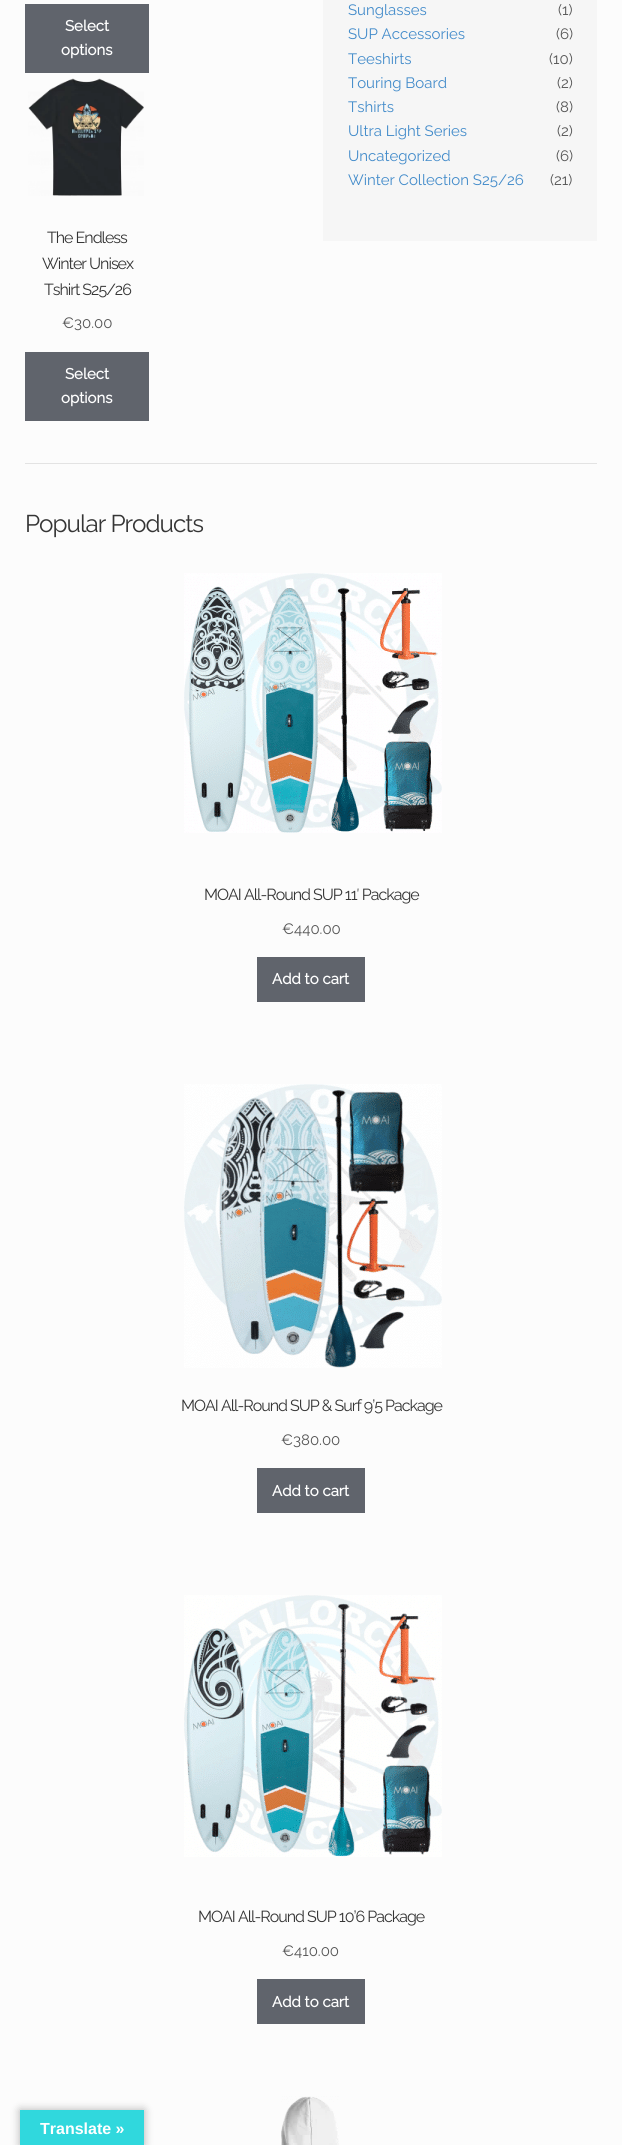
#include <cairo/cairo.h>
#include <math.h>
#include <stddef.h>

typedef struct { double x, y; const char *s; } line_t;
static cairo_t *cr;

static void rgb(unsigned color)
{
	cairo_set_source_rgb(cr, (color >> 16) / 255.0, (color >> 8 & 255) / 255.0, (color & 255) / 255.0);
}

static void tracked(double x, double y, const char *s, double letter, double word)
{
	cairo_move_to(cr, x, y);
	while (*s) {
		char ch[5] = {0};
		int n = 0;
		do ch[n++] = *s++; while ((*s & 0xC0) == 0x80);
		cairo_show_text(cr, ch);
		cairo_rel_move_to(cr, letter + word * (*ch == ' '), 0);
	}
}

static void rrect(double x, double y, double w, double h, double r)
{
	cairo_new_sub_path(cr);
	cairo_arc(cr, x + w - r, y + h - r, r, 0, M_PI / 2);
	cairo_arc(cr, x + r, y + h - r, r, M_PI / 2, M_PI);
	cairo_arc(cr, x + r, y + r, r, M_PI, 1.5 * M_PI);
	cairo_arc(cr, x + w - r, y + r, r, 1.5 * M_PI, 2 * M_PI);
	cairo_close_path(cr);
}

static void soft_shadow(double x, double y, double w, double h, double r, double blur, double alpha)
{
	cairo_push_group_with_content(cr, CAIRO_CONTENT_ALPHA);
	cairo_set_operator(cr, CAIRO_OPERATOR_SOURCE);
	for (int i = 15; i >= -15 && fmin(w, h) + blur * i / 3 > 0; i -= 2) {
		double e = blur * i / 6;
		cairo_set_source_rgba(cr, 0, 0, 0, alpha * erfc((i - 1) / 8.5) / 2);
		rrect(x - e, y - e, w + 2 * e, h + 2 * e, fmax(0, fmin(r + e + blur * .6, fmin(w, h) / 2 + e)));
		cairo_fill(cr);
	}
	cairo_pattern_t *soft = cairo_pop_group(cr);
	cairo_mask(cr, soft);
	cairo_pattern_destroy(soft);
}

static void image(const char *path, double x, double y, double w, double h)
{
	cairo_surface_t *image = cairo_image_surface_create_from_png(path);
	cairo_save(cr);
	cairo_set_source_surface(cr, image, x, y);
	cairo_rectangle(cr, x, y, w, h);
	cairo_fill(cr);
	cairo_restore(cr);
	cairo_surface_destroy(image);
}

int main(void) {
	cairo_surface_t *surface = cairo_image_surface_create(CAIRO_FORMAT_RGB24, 622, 2145);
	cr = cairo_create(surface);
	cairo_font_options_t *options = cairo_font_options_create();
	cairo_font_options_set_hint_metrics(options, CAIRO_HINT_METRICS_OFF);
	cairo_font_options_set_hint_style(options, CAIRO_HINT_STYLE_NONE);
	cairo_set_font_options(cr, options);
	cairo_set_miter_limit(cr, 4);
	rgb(0xfcfcfc);
	cairo_paint(cr);
	rgb(0xe3e3e3);
	cairo_rectangle(cr, 25, 463, 572, 1);
	cairo_fill(cr);
	rgb(0x60646c);
	cairo_rectangle(cr, 25, 4, 124, 69);
	cairo_fill(cr);
	image("img/1.png", 28, 78, 116, 118);
	cairo_rectangle(cr, 25, 352, 124, 69);
	cairo_fill(cr);
	rgb(0xf6f6f6);
	cairo_rectangle(cr, 323, 0, 274, 241);
	cairo_fill(cr);
	image("img/2.png", 184, 573, 258, 260);
	rgb(0x60646c);
	cairo_rectangle(cr, 257, 957, 108, 45);
	cairo_fill(cr);
	image("img/3.png", 184, 1084, 258, 284);
	cairo_rectangle(cr, 257, 1468, 108, 45);
	cairo_fill(cr);
	image("img/4.png", 184, 1595, 258, 262);
	cairo_rectangle(cr, 257, 1979, 108, 45);
	cairo_fill(cr);
	image("img/5.png", 281, 2096, 58, 49);
	rgb(0x000000);
	soft_shadow(20, 2110, 124, 35, 0, 4.5, 0.3);
	rgb(0x30d8dd);
	cairo_rectangle(cr, 20, 2110, 124, 35);
	cairo_fill(cr);
	cairo_select_font_face(cr, "Raleway", CAIRO_FONT_SLANT_NORMAL, CAIRO_FONT_WEIGHT_BOLD);
	cairo_set_font_size(cr, 15);
	rgb(0xffffff);
	cairo_move_to(cr, 65, 31);
	cairo_show_text(cr, "Select");
	cairo_move_to(cr, 61, 55);
	cairo_show_text(cr, "options");
	cairo_select_font_face(cr, "Raleway Thin", CAIRO_FONT_SLANT_NORMAL, CAIRO_FONT_WEIGHT_NORMAL);
	cairo_set_font_size(cr, 16);
	rgb(0x353535);
	{
		static const line_t items[] = {
			{47, 243, "The Endless"},
			{42, 269, "Winter Unisex"},
			{44, 295, "Tshirt S25/26"},
		};
		for (size_t i = 0; i < sizeof items / sizeof *items; i++) {
			tracked(items[i].x, items[i].y, items[i].s, -1, 0);
		}
	}
	cairo_set_font_size(cr, 15);
	rgb(0x565656);
	cairo_move_to(cr, 62, 328);
	cairo_show_text(cr, "€30.00");
	cairo_select_font_face(cr, "Raleway", CAIRO_FONT_SLANT_NORMAL, CAIRO_FONT_WEIGHT_BOLD);
	rgb(0xffffff);
	cairo_move_to(cr, 65, 379);
	cairo_show_text(cr, "Select");
	cairo_move_to(cr, 61, 403);
	cairo_show_text(cr, "options");
	cairo_select_font_face(cr, "Raleway Thin", CAIRO_FONT_SLANT_NORMAL, CAIRO_FONT_WEIGHT_NORMAL);
	rgb(0x428bca);
	cairo_move_to(cr, 348, 15);
	cairo_show_text(cr, "Sunglasses");
	rgb(0x565656);
	cairo_move_to(cr, 558, 15);
	cairo_show_text(cr, "(1)");
	rgb(0x428bca);
	cairo_move_to(cr, 348, 39);
	cairo_show_text(cr, "SUP Accessories");
	rgb(0x565656);
	cairo_move_to(cr, 556, 39);
	cairo_show_text(cr, "(6)");
	rgb(0x428bca);
	cairo_move_to(cr, 348, 64);
	cairo_show_text(cr, "Teeshirts");
	rgb(0x565656);
	cairo_move_to(cr, 549, 64);
	cairo_show_text(cr, "(10)");
	rgb(0x428bca);
	cairo_move_to(cr, 348, 88);
	cairo_show_text(cr, "Touring Board");
	rgb(0x565656);
	cairo_move_to(cr, 557, 88);
	cairo_show_text(cr, "(2)");
	rgb(0x428bca);
	cairo_move_to(cr, 348, 112);
	cairo_show_text(cr, "Tshirts");
	rgb(0x565656);
	cairo_move_to(cr, 556, 112);
	cairo_show_text(cr, "(8)");
	rgb(0x428bca);
	cairo_move_to(cr, 348, 136);
	cairo_show_text(cr, "Ultra Light Series");
	rgb(0x565656);
	cairo_move_to(cr, 557, 136);
	cairo_show_text(cr, "(2)");
	rgb(0x428bca);
	cairo_move_to(cr, 348, 161);
	cairo_show_text(cr, "Uncategorized");
	rgb(0x565656);
	cairo_move_to(cr, 556, 161);
	cairo_show_text(cr, "(6)");
	rgb(0x428bca);
	cairo_move_to(cr, 348, 185);
	cairo_show_text(cr, "Winter Collection S25/26");
	rgb(0x565656);
	cairo_move_to(cr, 550, 185);
	cairo_show_text(cr, "(21)");
	cairo_set_font_size(cr, 24.25);
	rgb(0x353535);
	tracked(25, 532, "Popular Products", -1, 0);
	cairo_set_font_size(cr, 16);
	tracked(204, 900, "MOAI All-Round SUP 11′ Package", -1, 0);
	cairo_set_font_size(cr, 15);
	rgb(0x565656);
	cairo_move_to(cr, 282, 934);
	cairo_show_text(cr, "€440.00");
	cairo_select_font_face(cr, "Raleway", CAIRO_FONT_SLANT_NORMAL, CAIRO_FONT_WEIGHT_BOLD);
	rgb(0xffffff);
	cairo_move_to(cr, 272, 984);
	cairo_show_text(cr, "Add to cart");
	cairo_select_font_face(cr, "Raleway Thin", CAIRO_FONT_SLANT_NORMAL, CAIRO_FONT_WEIGHT_NORMAL);
	cairo_set_font_size(cr, 16);
	rgb(0x353535);
	tracked(181, 1411, "MOAI All-Round SUP & Surf 9’5 Package", -1, 0);
	cairo_set_font_size(cr, 15);
	rgb(0x565656);
	cairo_move_to(cr, 281, 1445);
	cairo_show_text(cr, "€380.00");
	cairo_select_font_face(cr, "Raleway", CAIRO_FONT_SLANT_NORMAL, CAIRO_FONT_WEIGHT_BOLD);
	rgb(0xffffff);
	cairo_move_to(cr, 272, 1496);
	cairo_show_text(cr, "Add to cart");
	cairo_select_font_face(cr, "Raleway Thin", CAIRO_FONT_SLANT_NORMAL, CAIRO_FONT_WEIGHT_NORMAL);
	cairo_set_font_size(cr, 16);
	rgb(0x353535);
	tracked(198, 1922, "MOAI All-Round SUP 10’6 Package", -1, 0);
	cairo_set_font_size(cr, 15);
	rgb(0x565656);
	cairo_move_to(cr, 282, 1956);
	cairo_show_text(cr, "€410.00");
	cairo_select_font_face(cr, "Raleway", CAIRO_FONT_SLANT_NORMAL, CAIRO_FONT_WEIGHT_BOLD);
	rgb(0xffffff);
	cairo_move_to(cr, 272, 2007);
	cairo_show_text(cr, "Add to cart");
	cairo_select_font_face(cr, "Liberation Sans", CAIRO_FONT_SLANT_NORMAL, CAIRO_FONT_WEIGHT_BOLD);
	cairo_set_font_size(cr, 16);
	cairo_move_to(cr, 40, 2134);
	cairo_show_text(cr, "Translate »");
	cairo_surface_write_to_png(surface, "page.png");
	cairo_font_options_destroy(options);
	cairo_destroy(cr);
	cairo_surface_destroy(surface);
	return 0;
}
